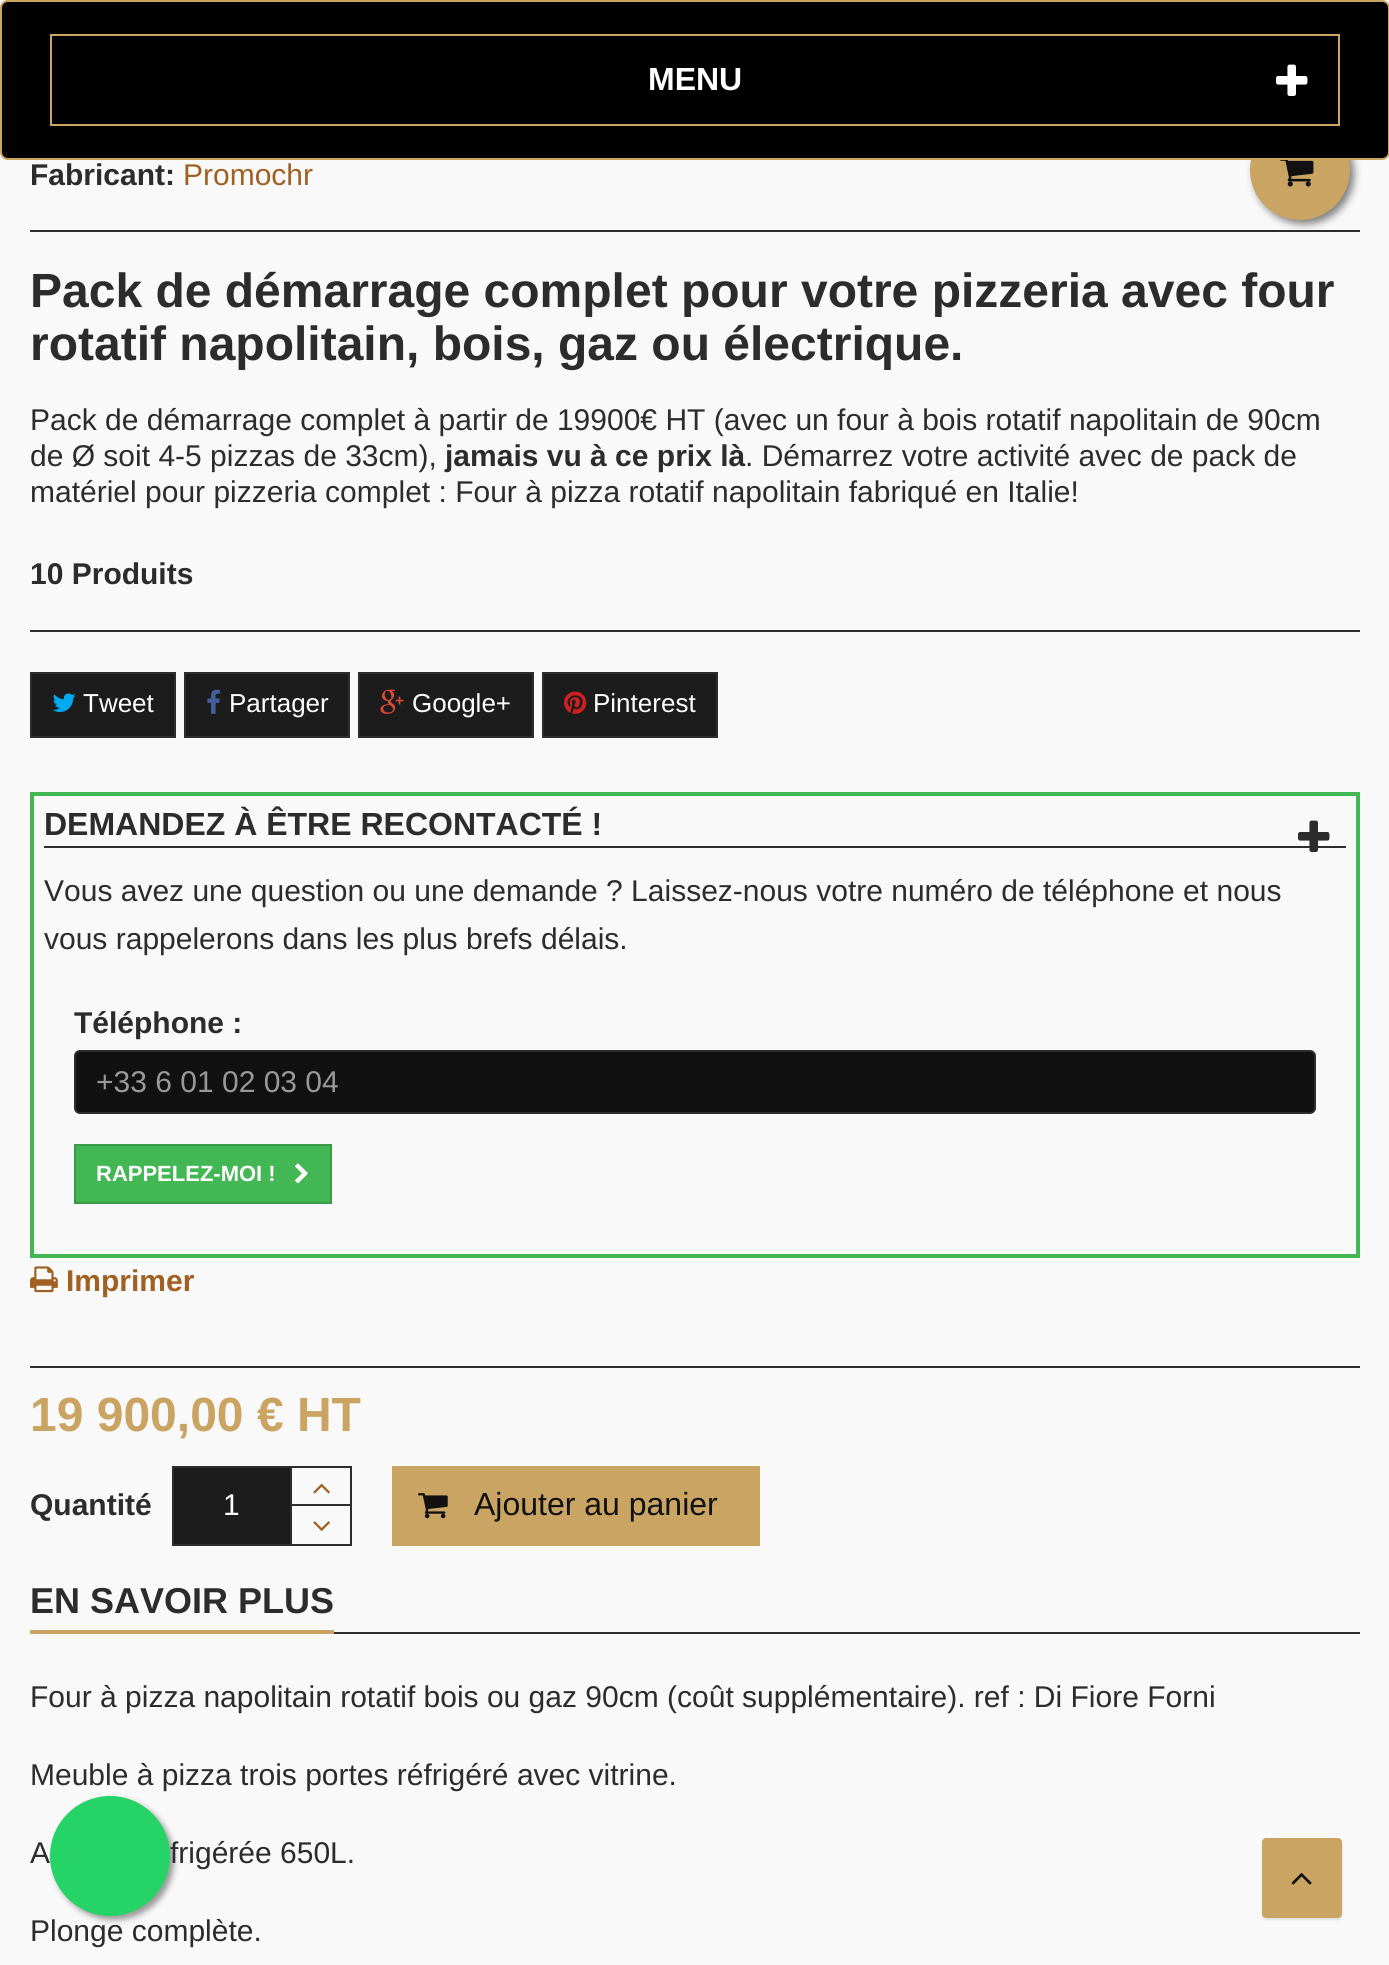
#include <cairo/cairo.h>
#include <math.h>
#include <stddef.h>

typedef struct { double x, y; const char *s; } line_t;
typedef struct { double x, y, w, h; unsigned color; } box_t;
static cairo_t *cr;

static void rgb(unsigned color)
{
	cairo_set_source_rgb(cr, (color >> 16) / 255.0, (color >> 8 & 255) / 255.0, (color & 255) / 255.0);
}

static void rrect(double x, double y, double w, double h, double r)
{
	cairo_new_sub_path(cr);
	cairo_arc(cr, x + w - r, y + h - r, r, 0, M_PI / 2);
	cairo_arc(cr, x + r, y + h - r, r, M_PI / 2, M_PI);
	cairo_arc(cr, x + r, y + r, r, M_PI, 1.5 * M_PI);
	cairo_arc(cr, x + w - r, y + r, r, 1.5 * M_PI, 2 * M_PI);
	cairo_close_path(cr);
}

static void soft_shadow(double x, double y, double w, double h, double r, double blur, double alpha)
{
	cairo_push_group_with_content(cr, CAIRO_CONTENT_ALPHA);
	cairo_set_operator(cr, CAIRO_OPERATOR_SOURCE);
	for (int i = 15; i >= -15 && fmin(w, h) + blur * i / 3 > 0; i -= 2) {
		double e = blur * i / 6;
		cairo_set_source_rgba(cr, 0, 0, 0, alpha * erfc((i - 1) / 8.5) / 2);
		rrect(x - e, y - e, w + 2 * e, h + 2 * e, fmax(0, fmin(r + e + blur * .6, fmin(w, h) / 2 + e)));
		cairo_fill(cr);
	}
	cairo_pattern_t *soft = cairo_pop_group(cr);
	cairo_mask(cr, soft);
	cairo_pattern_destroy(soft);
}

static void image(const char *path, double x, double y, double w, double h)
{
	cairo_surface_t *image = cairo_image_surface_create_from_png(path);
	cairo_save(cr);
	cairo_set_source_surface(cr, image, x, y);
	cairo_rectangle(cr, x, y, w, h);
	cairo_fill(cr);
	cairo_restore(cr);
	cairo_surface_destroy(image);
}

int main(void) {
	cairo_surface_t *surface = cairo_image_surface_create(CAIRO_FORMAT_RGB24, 1389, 1965);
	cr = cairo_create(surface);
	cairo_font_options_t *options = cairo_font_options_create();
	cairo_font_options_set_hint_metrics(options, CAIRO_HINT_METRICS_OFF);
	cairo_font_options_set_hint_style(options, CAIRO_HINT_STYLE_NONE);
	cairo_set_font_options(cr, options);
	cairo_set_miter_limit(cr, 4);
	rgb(0xf9f9f9);
	cairo_paint(cr);
	rgb(0x2d2d2d);
	cairo_rectangle(cr, 30, 230, 1330, 2);
	cairo_fill(cr);
	rgb(0x000000);
	soft_shadow(1254, 124, 100, 100, 50, 4, 0.5);
	rgb(0xcaa462);
	cairo_arc(cr, 1300, 170, 50, 0, 2 * M_PI);
	cairo_fill(cr);
	rgb(0x000000);
	rrect(1, 1, 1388, 158, 7);
	cairo_fill_preserve(cr);
	rgb(0xcaa462);
	cairo_stroke(cr);
	cairo_rectangle(cr, 51, 35, 1288, 90);
	cairo_stroke(cr);
	image("img/1.png", 1276, 64, 32, 32);
	image("img/2.png", 1280, 160, 34, 27);
	rgb(0x2d2d2d);
	cairo_rectangle(cr, 30, 630, 1330, 2);
	cairo_fill(cr);
	rgb(0x1c1c1c);
	cairo_rectangle(cr, 31, 673, 144, 64);
	cairo_fill_preserve(cr);
	rgb(0x2d2d2d);
	cairo_stroke(cr);
	image("img/3.png", 52, 693, 24, 19);
	rgb(0x1c1c1c);
	cairo_rectangle(cr, 185, 673, 164, 64);
	cairo_fill_preserve(cr);
	rgb(0x2d2d2d);
	cairo_stroke(cr);
	image("img/4.png", 207, 689, 13, 25);
	rgb(0x1c1c1c);
	cairo_rectangle(cr, 359, 673, 174, 64);
	cairo_fill_preserve(cr);
	rgb(0x2d2d2d);
	cairo_stroke(cr);
	image("img/5.png", 380, 689, 24, 25);
	rgb(0x1c1c1c);
	cairo_rectangle(cr, 543, 673, 174, 64);
	cairo_fill_preserve(cr);
	rgb(0x2d2d2d);
	cairo_stroke(cr);
	image("img/6.png", 564, 691, 23, 23);
	cairo_rectangle(cr, 32, 794, 1326, 462);
	rgb(0x43b754);
	cairo_set_line_width(cr, 4);
	cairo_stroke(cr);
	rgb(0x2d2d2d);
	cairo_rectangle(cr, 44, 846, 1302, 2);
	cairo_fill(cr);
	image("img/7.png", 1298, 820, 32, 32);
	rgb(0x111111);
	rrect(75, 1051, 1240, 62, 5);
	cairo_fill_preserve(cr);
	rgb(0x2d2d2d);
	cairo_set_line_width(cr, 2);
	cairo_stroke(cr);
	rgb(0x43b754);
	cairo_rectangle(cr, 75, 1145, 256, 58);
	cairo_fill_preserve(cr);
	rgb(0x399a49);
	cairo_stroke(cr);
	image("img/8.png", 295, 1163, 13, 21);
	image("img/9.png", 30, 1266, 28, 27);
	rgb(0x2d2d2d);
	cairo_rectangle(cr, 30, 1366, 1330, 2);
	cairo_fill(cr);
	rgb(0x1c1c1c);
	cairo_rectangle(cr, 173, 1467, 118, 78);
	cairo_fill_preserve(cr);
	rgb(0x2d2d2d);
	cairo_stroke(cr);
	{
		static const box_t items[] = {
			{292, 1466, 60, 2, 0x2d2d2d},
			{350, 1466, 2, 80, 0x2d2d2d},
			{292, 1544, 60, 2, 0x2d2d2d},
			{292, 1504, 58, 2, 0x2d2d2d},
		};
		for (size_t i = 0; i < sizeof items / sizeof *items; i++) {
			rgb(items[i].color);
			cairo_rectangle(cr, items[i].x, items[i].y, items[i].w, items[i].h);
			cairo_fill(cr);
		}
	}
	image("img/10.png", 313, 1483, 17, 11);
	image("img/11.png", 313, 1521, 17, 10);
	rgb(0xcaa462);
	cairo_rectangle(cr, 392, 1466, 368, 80);
	cairo_fill(cr);
	image("img/12.png", 418, 1493, 30, 26);
	rgb(0x2d2d2d);
	cairo_rectangle(cr, 334, 1632, 1026, 2);
	cairo_fill(cr);
	rgb(0xcaa462);
	cairo_rectangle(cr, 30, 1630, 304, 4);
	cairo_fill(cr);
	rgb(0x999999);
	soft_shadow(54, 1800, 120, 120, 60, 3, 1);
	rgb(0x25d366);
	cairo_arc(cr, 110, 1856, 60, 0, 2 * M_PI);
	cairo_fill(cr);
	rgb(0x000000);
	soft_shadow(1262, 1840, 80, 80, 4, 1, 0.1);
	rgb(0xcaa462);
	rrect(1262, 1838, 80, 80, 4);
	cairo_fill(cr);
	image("img/13.png", 1291, 1873, 21, 12);
	cairo_select_font_face(cr, "Liberation Sans", CAIRO_FONT_SLANT_NORMAL, CAIRO_FONT_WEIGHT_BOLD);
	cairo_set_font_size(cr, 32);
	rgb(0xffffff);
	cairo_move_to(cr, 648, 90);
	cairo_show_text(cr, "MENU");
	cairo_set_font_size(cr, 30);
	rgb(0x2c2c2c);
	cairo_move_to(cr, 30, 185);
	cairo_show_text(cr, "Fabricant:");
	cairo_select_font_face(cr, "Liberation Sans", CAIRO_FONT_SLANT_NORMAL, CAIRO_FONT_WEIGHT_NORMAL);
	rgb(0xa06022);
	cairo_move_to(cr, 183, 185);
	cairo_show_text(cr, "Promochr");
	cairo_select_font_face(cr, "Liberation Sans", CAIRO_FONT_SLANT_NORMAL, CAIRO_FONT_WEIGHT_BOLD);
	cairo_set_font_size(cr, 48);
	rgb(0x2c2c2c);
	cairo_move_to(cr, 30, 307);
	cairo_show_text(cr, "Pack de démarrage complet pour votre pizzeria avec four");
	cairo_move_to(cr, 30, 360);
	cairo_show_text(cr, "rotatif napolitain, bois, gaz ou électrique.");
	cairo_select_font_face(cr, "Liberation Sans", CAIRO_FONT_SLANT_NORMAL, CAIRO_FONT_WEIGHT_NORMAL);
	cairo_set_font_size(cr, 30);
	cairo_move_to(cr, 30, 430);
	cairo_show_text(cr, "Pack de démarrage complet à partir de 19900€ HT (avec un four à bois rotatif napolitain de 90cm");
	cairo_move_to(cr, 30, 466);
	cairo_show_text(cr, "de Ø soit 4-5 pizzas de 33cm),");
	cairo_select_font_face(cr, "Liberation Sans", CAIRO_FONT_SLANT_NORMAL, CAIRO_FONT_WEIGHT_BOLD);
	cairo_move_to(cr, 445, 466);
	cairo_show_text(cr, "jamais vu à ce prix là");
	cairo_select_font_face(cr, "Liberation Sans", CAIRO_FONT_SLANT_NORMAL, CAIRO_FONT_WEIGHT_NORMAL);
	cairo_move_to(cr, 745, 466);
	cairo_show_text(cr, ". Démarrez votre activité avec de pack de");
	cairo_move_to(cr, 30, 502);
	cairo_show_text(cr, "matériel pour pizzeria complet : Four à pizza rotatif napolitain fabriqué en Italie!");
	cairo_select_font_face(cr, "Liberation Sans", CAIRO_FONT_SLANT_NORMAL, CAIRO_FONT_WEIGHT_BOLD);
	cairo_move_to(cr, 30, 584);
	cairo_show_text(cr, "10 Produits");
	cairo_select_font_face(cr, "Liberation Sans", CAIRO_FONT_SLANT_NORMAL, CAIRO_FONT_WEIGHT_NORMAL);
	cairo_set_font_size(cr, 26);
	rgb(0xffffff);
	{
		static const line_t items[] = {
			{83, 712, "Tweet"},
			{229, 712, "Partager"},
			{412, 712, "Google+"},
			{593, 712, "Pinterest"},
		};
		for (size_t i = 0; i < sizeof items / sizeof *items; i++) {
			cairo_move_to(cr, items[i].x, items[i].y);
			cairo_show_text(cr, items[i].s);
		}
	}
	cairo_select_font_face(cr, "Liberation Sans", CAIRO_FONT_SLANT_NORMAL, CAIRO_FONT_WEIGHT_BOLD);
	cairo_set_font_size(cr, 32);
	rgb(0x2c2c2c);
	cairo_move_to(cr, 44, 835);
	cairo_show_text(cr, "DEMANDEZ À ÊTRE RECONTACTÉ !");
	cairo_select_font_face(cr, "Liberation Sans", CAIRO_FONT_SLANT_NORMAL, CAIRO_FONT_WEIGHT_NORMAL);
	cairo_set_font_size(cr, 30);
	cairo_move_to(cr, 44, 901);
	cairo_show_text(cr, "Vous avez une question ou une demande ? Laissez-nous votre numéro de téléphone et nous");
	cairo_move_to(cr, 44, 949);
	cairo_show_text(cr, "vous rappelerons dans les plus brefs délais.");
	cairo_select_font_face(cr, "Liberation Sans", CAIRO_FONT_SLANT_NORMAL, CAIRO_FONT_WEIGHT_BOLD);
	cairo_move_to(cr, 74, 1033);
	cairo_show_text(cr, "Téléphone :");
	cairo_select_font_face(cr, "Liberation Sans", CAIRO_FONT_SLANT_NORMAL, CAIRO_FONT_WEIGHT_NORMAL);
	rgb(0x999999);
	cairo_move_to(cr, 96, 1092);
	cairo_show_text(cr, "+33 6 01 02 03 04");
	cairo_select_font_face(cr, "Liberation Sans", CAIRO_FONT_SLANT_NORMAL, CAIRO_FONT_WEIGHT_BOLD);
	cairo_set_font_size(cr, 22);
	rgb(0xffffff);
	cairo_move_to(cr, 96, 1181);
	cairo_show_text(cr, "RAPPELEZ-MOI !");
	cairo_set_font_size(cr, 30);
	rgb(0xa06022);
	cairo_move_to(cr, 66, 1291);
	cairo_show_text(cr, "Imprimer");
	cairo_set_font_size(cr, 48);
	rgb(0xcaa462);
	cairo_move_to(cr, 30, 1431);
	cairo_show_text(cr, "19 900,00 € HT");
	cairo_set_font_size(cr, 30);
	rgb(0x2c2c2c);
	cairo_move_to(cr, 30, 1515);
	cairo_show_text(cr, "Quantité");
	cairo_select_font_face(cr, "Liberation Sans", CAIRO_FONT_SLANT_NORMAL, CAIRO_FONT_WEIGHT_NORMAL);
	rgb(0xffffff);
	cairo_move_to(cr, 223, 1515);
	cairo_show_text(cr, "1");
	cairo_set_font_size(cr, 32);
	rgb(0x111111);
	cairo_move_to(cr, 474, 1515);
	cairo_show_text(cr, "Ajouter au panier");
	cairo_select_font_face(cr, "Liberation Sans", CAIRO_FONT_SLANT_NORMAL, CAIRO_FONT_WEIGHT_BOLD);
	cairo_set_font_size(cr, 36);
	rgb(0x2c2c2c);
	cairo_move_to(cr, 30, 1613);
	cairo_show_text(cr, "EN SAVOIR PLUS");
	cairo_select_font_face(cr, "Liberation Sans", CAIRO_FONT_SLANT_NORMAL, CAIRO_FONT_WEIGHT_NORMAL);
	cairo_set_font_size(cr, 30);
	{
		static const line_t items[] = {
			{30, 1707, "Four à pizza napolitain rotatif bois ou gaz 90cm (coût supplémentaire). ref : Di Fiore Forni"},
			{30, 1785, "Meuble à pizza trois portes réfrigéré avec vitrine."},
			{30, 1863, "A"},
			{170, 1863, "frigérée 650L."},
			{30, 1941, "Plonge complète."},
		};
		for (size_t i = 0; i < sizeof items / sizeof *items; i++) {
			cairo_move_to(cr, items[i].x, items[i].y);
			cairo_show_text(cr, items[i].s);
		}
	}
	cairo_surface_write_to_png(surface, "page.png");
	cairo_font_options_destroy(options);
	cairo_destroy(cr);
	cairo_surface_destroy(surface);
	return 0;
}
